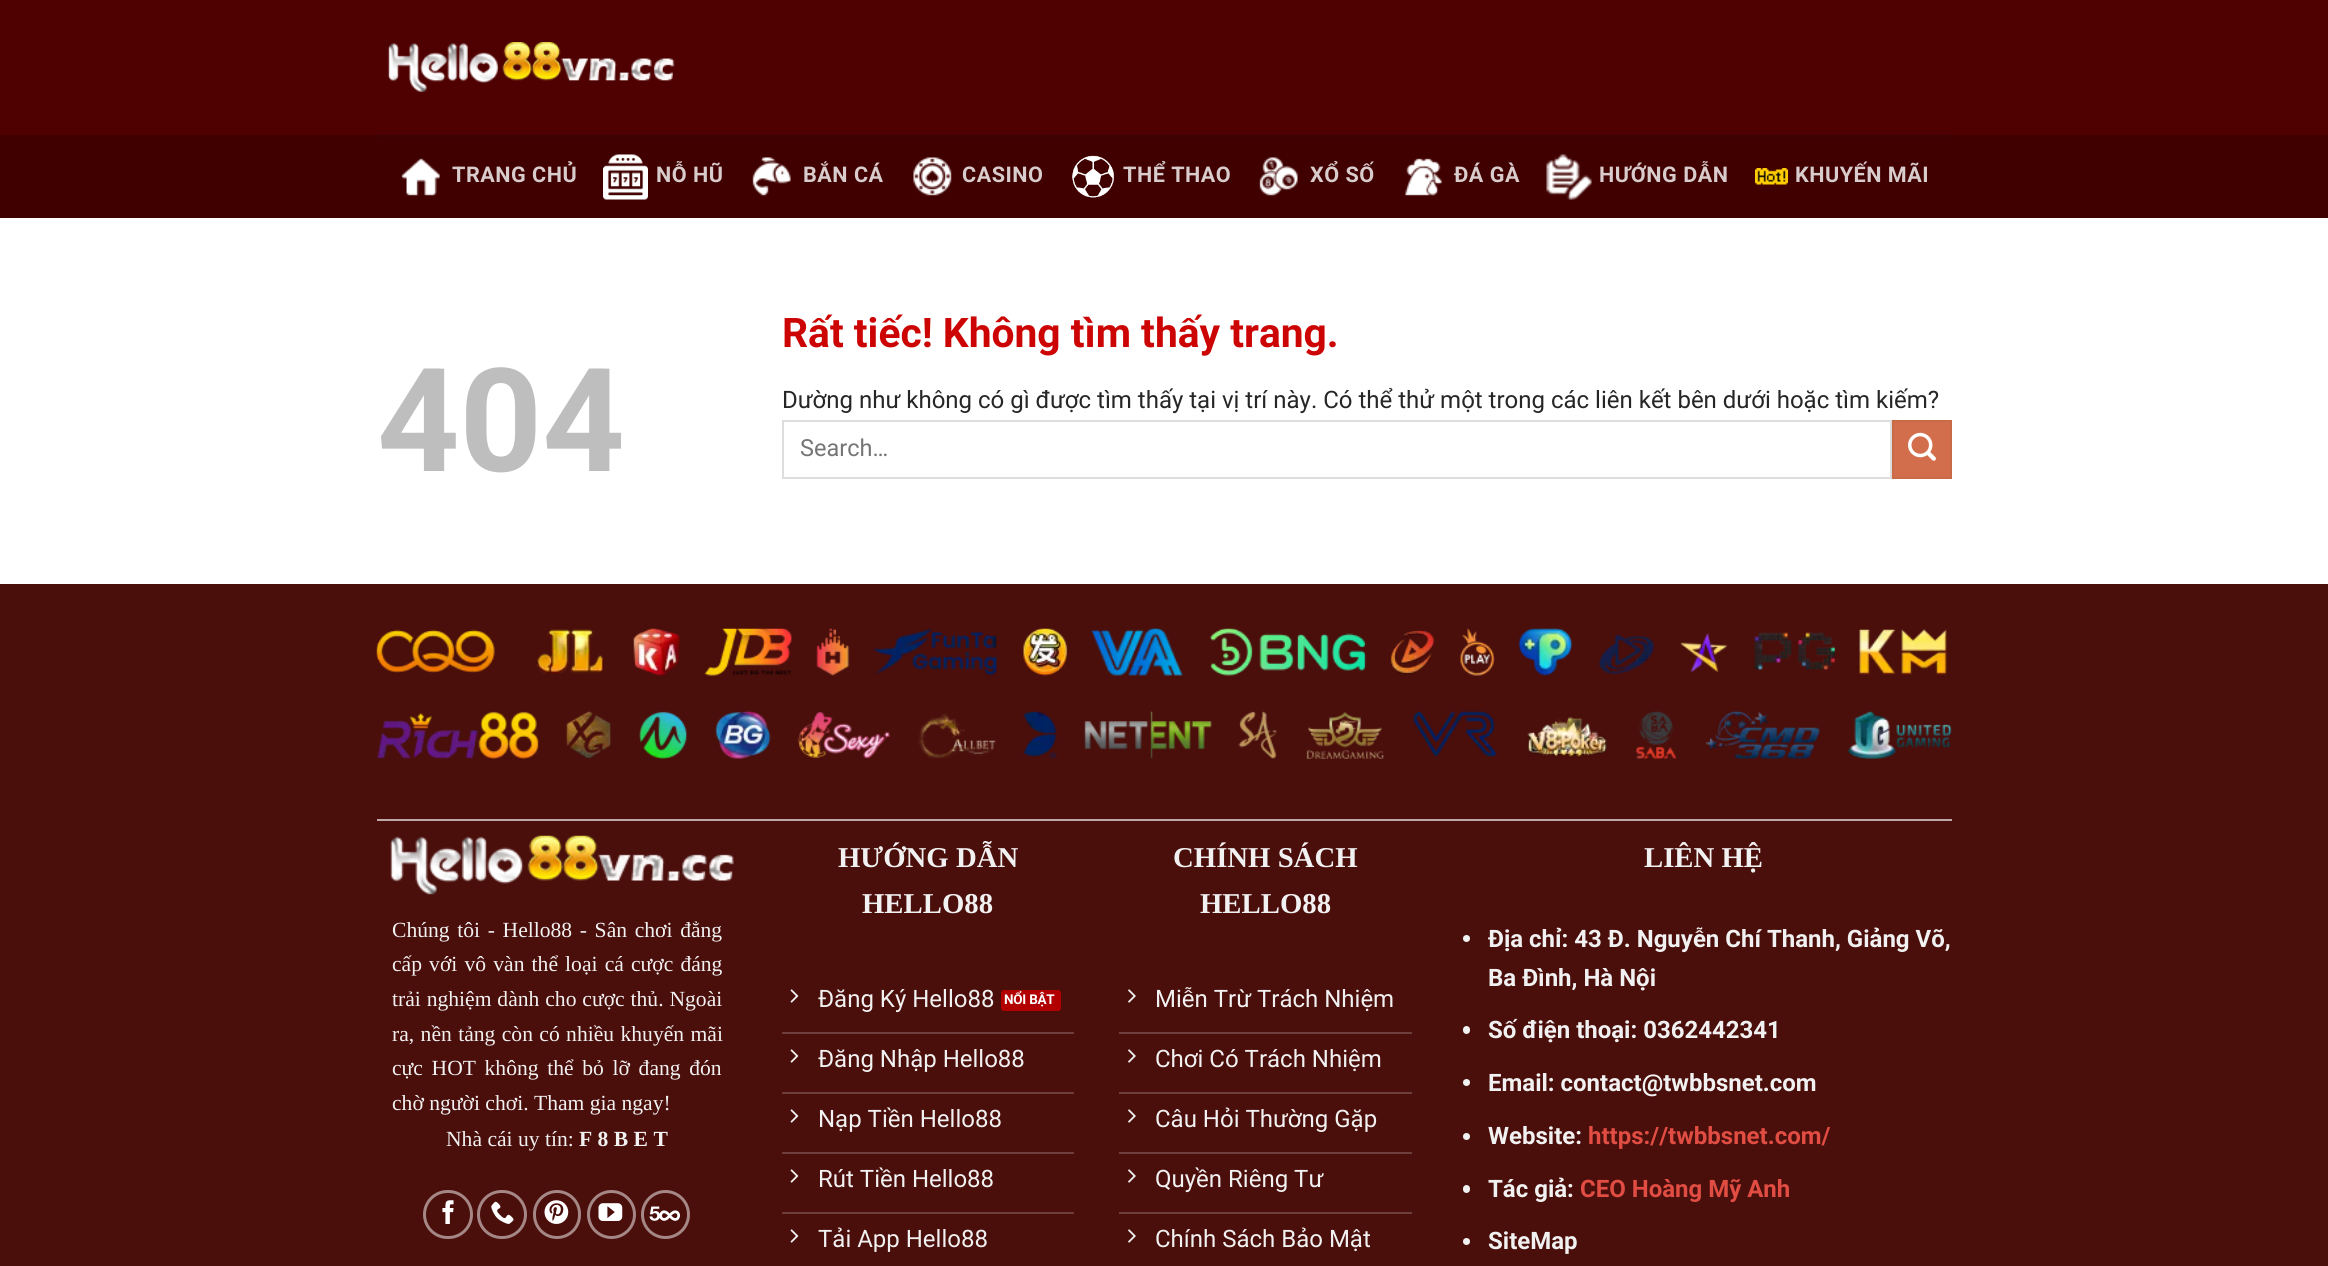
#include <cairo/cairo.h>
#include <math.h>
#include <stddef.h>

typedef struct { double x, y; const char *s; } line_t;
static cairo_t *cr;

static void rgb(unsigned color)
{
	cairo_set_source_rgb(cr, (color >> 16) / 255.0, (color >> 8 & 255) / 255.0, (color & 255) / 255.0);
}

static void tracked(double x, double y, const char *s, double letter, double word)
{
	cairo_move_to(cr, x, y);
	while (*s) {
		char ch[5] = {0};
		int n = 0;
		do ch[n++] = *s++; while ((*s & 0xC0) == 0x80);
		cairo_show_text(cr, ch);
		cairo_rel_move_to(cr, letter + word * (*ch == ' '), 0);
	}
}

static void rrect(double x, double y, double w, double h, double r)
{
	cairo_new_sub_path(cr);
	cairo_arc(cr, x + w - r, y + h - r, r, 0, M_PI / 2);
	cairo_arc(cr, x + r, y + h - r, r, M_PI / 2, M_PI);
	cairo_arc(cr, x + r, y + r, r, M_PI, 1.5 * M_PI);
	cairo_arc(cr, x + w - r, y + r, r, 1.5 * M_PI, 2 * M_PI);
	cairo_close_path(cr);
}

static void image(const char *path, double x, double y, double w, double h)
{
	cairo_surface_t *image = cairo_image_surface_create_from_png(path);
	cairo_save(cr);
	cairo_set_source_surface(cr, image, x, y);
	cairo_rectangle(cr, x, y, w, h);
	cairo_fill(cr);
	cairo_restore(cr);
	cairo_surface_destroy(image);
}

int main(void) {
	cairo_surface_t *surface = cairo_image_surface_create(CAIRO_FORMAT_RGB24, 2328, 1266);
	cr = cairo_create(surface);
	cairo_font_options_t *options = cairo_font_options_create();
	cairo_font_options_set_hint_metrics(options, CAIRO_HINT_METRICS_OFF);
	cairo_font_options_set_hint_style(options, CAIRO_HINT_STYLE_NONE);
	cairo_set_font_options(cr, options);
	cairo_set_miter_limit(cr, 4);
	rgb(0xffffff);
	cairo_paint(cr);
	rgb(0x4f0000);
	cairo_rectangle(cr, 0, 0, 2328, 135);
	cairo_fill(cr);
	image("img/1.png", 387, 42, 288, 50);
	rgb(0x400000);
	cairo_rectangle(cr, 0, 135, 2328, 83);
	cairo_fill(cr);
	rgb(0x3d0404);
	cairo_rectangle(cr, 377, 135, 1575, 2);
	cairo_fill(cr);
	image("img/2.png", 401, 158, 39, 38);
	image("img/3.png", 603, 154, 45, 46);
	image("img/4.png", 752, 157, 39, 39);
	image("img/5.png", 913, 157, 39, 39);
	image("img/6.png", 1072, 155, 42, 43);
	image("img/7.png", 1259, 157, 39, 39);
	image("img/8.png", 1405, 158, 37, 38);
	image("img/9.png", 1546, 154, 46, 46);
	image("img/10.png", 1755, 168, 33, 17);
	cairo_rectangle(cr, 783, 421, 1108, 57);
	rgb(0xdddddd);
	cairo_stroke(cr);
	rgb(0xd26e4b);
	cairo_rectangle(cr, 1893, 421, 58, 57);
	cairo_fill_preserve(cr);
	rgb(0xc86947);
	cairo_stroke(cr);
	image("img/11.png", 1908, 432, 28, 29);
	rgb(0x4a0e0b);
	cairo_rectangle(cr, 0, 584, 2328, 682);
	cairo_fill(cr);
	image("img/12.png", 376, 628, 1576, 131);
	rgb(0xbea9a8);
	cairo_rectangle(cr, 377, 819, 1575, 2);
	cairo_fill(cr);
	image("img/13.png", 390, 835, 344, 60);
	rrect(424.5, 1191.5, 47, 46, 23);
	rgb(0xa58785);
	cairo_set_line_width(cr, 3);
	cairo_stroke(cr);
	image("img/14.png", 442, 1200, 12, 24);
	rrect(478.5, 1191.5, 47, 46, 23);
	cairo_stroke(cr);
	image("img/15.png", 491, 1201, 23, 23);
	rrect(534.5, 1191.5, 45, 46, 22.5);
	cairo_stroke(cr);
	image("img/16.png", 544, 1200, 25, 24);
	cairo_arc(cr, 611.5, 1214.5, 23, 0, 2 * M_PI);
	cairo_stroke(cr);
	image("img/17.png", 598, 1203, 25, 18);
	cairo_arc(cr, 665.5, 1214.5, 23, 0, 2 * M_PI);
	cairo_stroke(cr);
	image("img/18.png", 649, 1206, 31, 15);
	rgb(0x6e3e3c);
	cairo_rectangle(cr, 782, 1032, 292, 2);
	cairo_fill(cr);
	image("img/19.png", 790, 989, 9, 14);
	rgb(0xb20000);
	rrect(1001, 990, 60, 21, 3);
	cairo_fill(cr);
	rgb(0x6e3e3c);
	cairo_rectangle(cr, 782, 1092, 292, 2);
	cairo_fill(cr);
	image("img/19.png", 790, 1049, 9, 14);
	cairo_rectangle(cr, 782, 1152, 292, 2);
	cairo_fill(cr);
	image("img/19.png", 790, 1109, 9, 14);
	cairo_rectangle(cr, 782, 1212, 292, 2);
	cairo_fill(cr);
	image("img/19.png", 790, 1169, 9, 14);
	image("img/19.png", 790, 1229, 9, 14);
	cairo_rectangle(cr, 1119, 1032, 293, 2);
	cairo_fill(cr);
	image("img/20.png", 1128, 989, 8, 14);
	cairo_rectangle(cr, 1119, 1092, 293, 2);
	cairo_fill(cr);
	image("img/20.png", 1128, 1049, 8, 14);
	cairo_rectangle(cr, 1119, 1152, 293, 2);
	cairo_fill(cr);
	image("img/20.png", 1128, 1109, 8, 14);
	cairo_rectangle(cr, 1119, 1212, 293, 2);
	cairo_fill(cr);
	image("img/20.png", 1128, 1169, 8, 14);
	image("img/20.png", 1128, 1229, 8, 14);
	rgb(0xf1f1f1);
	cairo_arc(cr, 1466.5, 938.5, 3.5, 0, 2 * M_PI);
	cairo_fill(cr);
	rrect(1463, 1026, 7, 8, 3.5);
	cairo_fill(cr);
	cairo_arc(cr, 1466.5, 1082.5, 3.5, 0, 2 * M_PI);
	cairo_fill(cr);
	cairo_arc(cr, 1466.5, 1136.5, 3.5, 0, 2 * M_PI);
	cairo_fill(cr);
	rrect(1463, 1185, 7, 8, 3.5);
	cairo_fill(cr);
	cairo_arc(cr, 1466.5, 1241.5, 3.5, 0, 2 * M_PI);
	cairo_fill(cr);
	cairo_select_font_face(cr, "Roboto", CAIRO_FONT_SLANT_NORMAL, CAIRO_FONT_WEIGHT_BOLD);
	cairo_set_font_size(cr, 21.6);
	rgb(0xd9cccc);
	{
		static const line_t items[] = {
			{452, 182, "TRANG CHỦ"},
			{656, 182, "NỖ HŨ"},
			{803, 182, "BẮN CÁ"},
			{962, 182, "CASINO"},
			{1123, 182, "THỂ THAO"},
			{1310, 182, "XỔ SỐ"},
			{1454, 182, "ĐÁ GÀ"},
			{1599, 182, "HƯỚNG DẪN"},
			{1795, 182, "KHUYẾN MÃI"},
		};
		for (size_t i = 0; i < sizeof items / sizeof *items; i++) {
			tracked(items[i].x, items[i].y, items[i].s, 0.5, 0);
		}
	}
	cairo_set_font_size(cr, 144);
	rgb(0xbebebe);
	cairo_move_to(cr, 377, 471);
	cairo_show_text(cr, "404");
	cairo_set_font_size(cr, 40.75);
	rgb(0xcc0404);
	cairo_move_to(cr, 782, 347);
	cairo_show_text(cr, "Rất tiếc! Không tìm thấy trang.");
	cairo_select_font_face(cr, "Roboto", CAIRO_FONT_SLANT_NORMAL, CAIRO_FONT_WEIGHT_NORMAL);
	cairo_set_font_size(cr, 24);
	rgb(0x262626);
	cairo_move_to(cr, 782, 408);
	cairo_show_text(cr, "Dường như không có gì được tìm thấy tại vị trí này. Có thể thử một trong các liên kết bên dưới hoặc tìm kiếm?");
	cairo_set_font_size(cr, 23.5);
	rgb(0x757575);
	cairo_move_to(cr, 800, 456);
	cairo_show_text(cr, "Search…");
	cairo_select_font_face(cr, "Liberation Serif", CAIRO_FONT_SLANT_NORMAL, CAIRO_FONT_WEIGHT_NORMAL);
	cairo_set_font_size(cr, 21.6);
	rgb(0xf1f1f1);
	tracked(392, 937, "Chúng tôi - Hello88 - Sân chơi đẳng", 0, 2.25);
	tracked(392, 971, "cấp với vô vàn thể loại cá cược đáng", 0, 1.75);
	tracked(392, 1006, "trải nghiệm dành cho cược thủ. Ngoài", 0, 0.5);
	tracked(392, 1041, "ra, nền tảng còn có nhiều khuyến mãi", 0, 1);
	tracked(392, 1075, "cực HOT không thể bỏ lỡ đang đón", 0, 3.25);
	cairo_move_to(cr, 392, 1110);
	cairo_show_text(cr, "chờ người chơi. Tham gia ngay!");
	cairo_move_to(cr, 446, 1146);
	cairo_show_text(cr, "Nhà cái uy tín:");
	cairo_select_font_face(cr, "Liberation Serif", CAIRO_FONT_SLANT_NORMAL, CAIRO_FONT_WEIGHT_BOLD);
	cairo_move_to(cr, 579, 1146);
	cairo_show_text(cr, "F 8 B E T");
	cairo_set_font_size(cr, 28.75);
	cairo_move_to(cr, 838, 867);
	cairo_show_text(cr, "HƯỚNG DẪN");
	cairo_move_to(cr, 862, 913);
	cairo_show_text(cr, "HELLO88");
	cairo_select_font_face(cr, "Roboto", CAIRO_FONT_SLANT_NORMAL, CAIRO_FONT_WEIGHT_NORMAL);
	cairo_set_font_size(cr, 24);
	cairo_move_to(cr, 818, 1007);
	cairo_show_text(cr, "Đăng Ký Hello88");
	cairo_select_font_face(cr, "Roboto", CAIRO_FONT_SLANT_NORMAL, CAIRO_FONT_WEIGHT_BOLD);
	cairo_set_font_size(cr, 13.5);
	rgb(0xffffff);
	tracked(1004, 1004, "NỔI BẬT", -0.25, 0);
	cairo_select_font_face(cr, "Roboto", CAIRO_FONT_SLANT_NORMAL, CAIRO_FONT_WEIGHT_NORMAL);
	cairo_set_font_size(cr, 24);
	rgb(0xf1f1f1);
	{
		static const line_t items[] = {
			{818, 1067, "Đăng Nhập Hello88"},
			{818, 1127, "Nạp Tiền Hello88"},
			{818, 1187, "Rút Tiền Hello88"},
			{818, 1247, "Tải App Hello88"},
		};
		for (size_t i = 0; i < sizeof items / sizeof *items; i++) {
			cairo_move_to(cr, items[i].x, items[i].y);
			cairo_show_text(cr, items[i].s);
		}
	}
	cairo_select_font_face(cr, "Liberation Serif", CAIRO_FONT_SLANT_NORMAL, CAIRO_FONT_WEIGHT_BOLD);
	cairo_set_font_size(cr, 28.75);
	cairo_move_to(cr, 1173, 867);
	cairo_show_text(cr, "CHÍNH SÁCH");
	cairo_move_to(cr, 1200, 913);
	cairo_show_text(cr, "HELLO88");
	cairo_select_font_face(cr, "Roboto", CAIRO_FONT_SLANT_NORMAL, CAIRO_FONT_WEIGHT_NORMAL);
	cairo_set_font_size(cr, 24);
	{
		static const line_t items[] = {
			{1155, 1007, "Miễn Trừ Trách Nhiệm"},
			{1155, 1067, "Chơi Có Trách Nhiệm"},
			{1155, 1127, "Câu Hỏi Thường Gặp"},
			{1155, 1187, "Quyền Riêng Tư"},
			{1155, 1247, "Chính Sách Bảo Mật"},
		};
		for (size_t i = 0; i < sizeof items / sizeof *items; i++) {
			cairo_move_to(cr, items[i].x, items[i].y);
			cairo_show_text(cr, items[i].s);
		}
	}
	cairo_select_font_face(cr, "Liberation Serif", CAIRO_FONT_SLANT_NORMAL, CAIRO_FONT_WEIGHT_BOLD);
	cairo_set_font_size(cr, 28.75);
	cairo_move_to(cr, 1644, 867);
	cairo_show_text(cr, "LIÊN HỆ");
	cairo_select_font_face(cr, "Roboto", CAIRO_FONT_SLANT_NORMAL, CAIRO_FONT_WEIGHT_BOLD);
	cairo_set_font_size(cr, 24);
	{
		static const line_t items[] = {
			{1488, 947, "Địa chỉ: 43 Đ. Nguyễn Chí Thanh, Giảng Võ,"},
			{1488, 986, "Ba Đình, Hà Nội"},
			{1488, 1038, "Số điện thoại: 0362442341"},
			{1488, 1091, "Email: contact@twbbsnet.com"},
			{1488, 1144, "Website:"},
		};
		for (size_t i = 0; i < sizeof items / sizeof *items; i++) {
			cairo_move_to(cr, items[i].x, items[i].y);
			cairo_show_text(cr, items[i].s);
		}
	}
	rgb(0xe14d43);
	cairo_move_to(cr, 1588, 1144);
	cairo_show_text(cr, "https://twbbsnet.com/");
	rgb(0xf1f1f1);
	cairo_move_to(cr, 1488, 1197);
	cairo_show_text(cr, "Tác giả:");
	rgb(0xe14d43);
	cairo_move_to(cr, 1580, 1197);
	cairo_show_text(cr, "CEO Hoàng Mỹ Anh");
	rgb(0xf1f1f1);
	cairo_move_to(cr, 1488, 1249);
	cairo_show_text(cr, "SiteMap");
	cairo_surface_write_to_png(surface, "page.png");
	cairo_font_options_destroy(options);
	cairo_destroy(cr);
	cairo_surface_destroy(surface);
	return 0;
}
